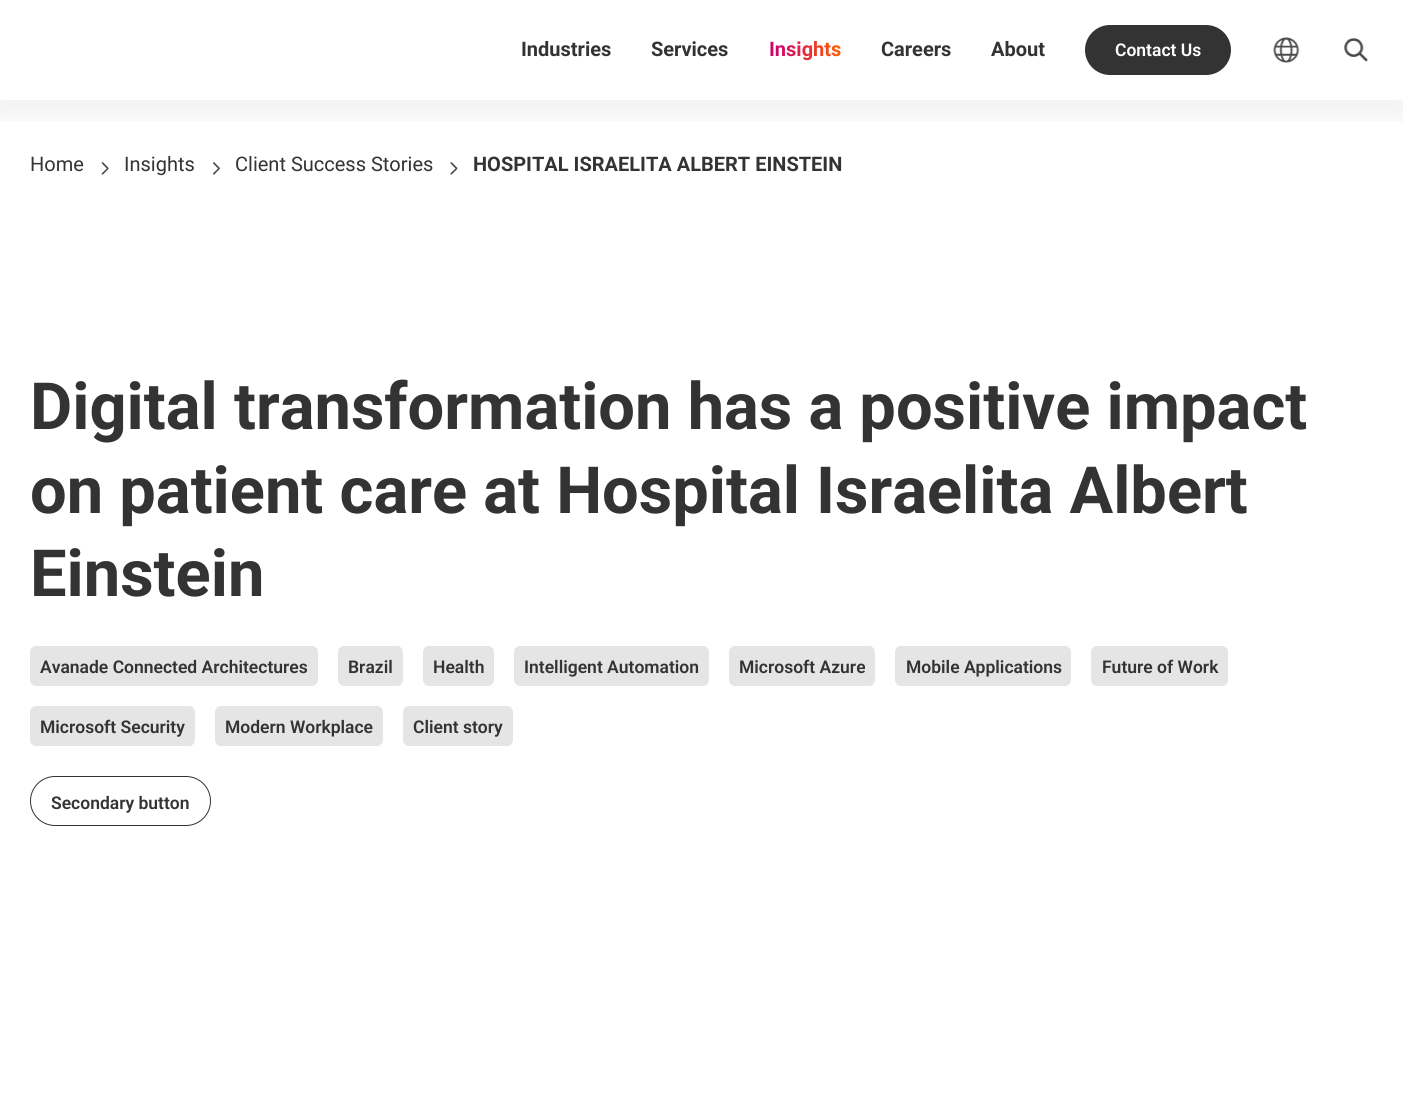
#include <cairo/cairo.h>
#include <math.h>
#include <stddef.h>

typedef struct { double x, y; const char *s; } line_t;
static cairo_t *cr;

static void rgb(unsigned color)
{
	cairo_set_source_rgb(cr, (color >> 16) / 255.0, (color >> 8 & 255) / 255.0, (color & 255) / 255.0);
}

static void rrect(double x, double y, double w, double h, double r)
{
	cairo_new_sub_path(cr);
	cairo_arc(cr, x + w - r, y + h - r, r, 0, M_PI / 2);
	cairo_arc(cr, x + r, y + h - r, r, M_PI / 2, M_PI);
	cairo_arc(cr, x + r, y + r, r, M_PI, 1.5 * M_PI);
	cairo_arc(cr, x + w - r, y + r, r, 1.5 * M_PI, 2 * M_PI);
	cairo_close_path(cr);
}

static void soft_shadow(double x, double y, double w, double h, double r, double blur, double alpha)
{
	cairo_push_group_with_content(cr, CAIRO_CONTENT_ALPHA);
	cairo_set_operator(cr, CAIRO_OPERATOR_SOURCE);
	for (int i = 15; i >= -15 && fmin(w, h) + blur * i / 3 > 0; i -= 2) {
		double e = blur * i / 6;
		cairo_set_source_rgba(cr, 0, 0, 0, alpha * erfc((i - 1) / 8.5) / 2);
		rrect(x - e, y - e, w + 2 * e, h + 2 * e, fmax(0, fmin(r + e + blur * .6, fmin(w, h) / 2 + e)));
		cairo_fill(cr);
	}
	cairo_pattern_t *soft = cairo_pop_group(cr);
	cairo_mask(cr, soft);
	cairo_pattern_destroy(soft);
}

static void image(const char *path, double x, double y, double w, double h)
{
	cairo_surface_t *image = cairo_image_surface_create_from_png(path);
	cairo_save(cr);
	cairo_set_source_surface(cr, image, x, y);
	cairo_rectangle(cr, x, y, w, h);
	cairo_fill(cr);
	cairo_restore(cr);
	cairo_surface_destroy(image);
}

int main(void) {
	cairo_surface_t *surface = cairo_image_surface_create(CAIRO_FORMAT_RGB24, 1403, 1120);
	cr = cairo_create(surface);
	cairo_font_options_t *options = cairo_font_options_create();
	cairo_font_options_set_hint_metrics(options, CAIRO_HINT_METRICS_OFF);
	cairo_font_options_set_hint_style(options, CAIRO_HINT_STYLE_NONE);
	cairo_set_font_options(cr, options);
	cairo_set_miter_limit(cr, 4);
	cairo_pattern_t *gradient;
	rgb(0xffffff);
	cairo_paint(cr);
	cairo_save(cr);
	cairo_rectangle(cr, 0, 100, 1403, 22);
	cairo_clip(cr);
	rgb(0x000000);
	soft_shadow(-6, 6, 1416, 113, 0, 12.5, 0.05);
	cairo_restore(cr);
	rgb(0x333333);
	rrect(1085, 25, 146, 50, 25);
	cairo_fill(cr);
	image("img/1.png", 1273, 37, 27, 26);
	image("img/2.png", 1344, 38, 24, 24);
	image("img/3.png", 101, 162, 8, 13);
	image("img/4.png", 213, 162, 7, 13);
	image("img/5.png", 450, 162, 8, 13);
	rgb(0xe5e5e5);
	rrect(30, 646, 288, 40, 6);
	cairo_fill(cr);
	rrect(338, 646, 65, 40, 6);
	cairo_fill(cr);
	rrect(423, 646, 71, 40, 6);
	cairo_fill(cr);
	rrect(514, 646, 195, 40, 6);
	cairo_fill(cr);
	rrect(729, 646, 146, 40, 6);
	cairo_fill(cr);
	rrect(895, 646, 176, 40, 6);
	cairo_fill(cr);
	rrect(1091, 646, 137, 40, 6);
	cairo_fill(cr);
	rrect(30, 706, 165, 40, 6);
	cairo_fill(cr);
	rrect(215, 706, 168, 40, 6);
	cairo_fill(cr);
	rrect(403, 706, 110, 40, 6);
	cairo_fill(cr);
	rrect(30.5, 776.5, 180, 49, 24.5);
	rgb(0x333333);
	cairo_set_line_width(cr, 1);
	cairo_stroke(cr);
	cairo_select_font_face(cr, "Roboto", CAIRO_FONT_SLANT_NORMAL, CAIRO_FONT_WEIGHT_BOLD);
	cairo_set_font_size(cr, 20);
	cairo_move_to(cr, 521, 56);
	cairo_show_text(cr, "Industries");
	cairo_move_to(cr, 651, 56);
	cairo_show_text(cr, "Services");
	gradient = cairo_pattern_create_linear(769, 49, 841, 49);
	cairo_pattern_add_color_stop_rgba(gradient, 0.13, 0.808, 0.02, 0.412, 1);
	cairo_pattern_add_color_stop_rgba(gradient, 0.95, 1, 0.345, 0, 1);
	cairo_set_source(cr, gradient);
	cairo_pattern_destroy(gradient);
	cairo_move_to(cr, 769, 56);
	cairo_show_text(cr, "Insights");
	rgb(0x333333);
	cairo_move_to(cr, 881, 56);
	cairo_show_text(cr, "Careers");
	cairo_move_to(cr, 991, 56);
	cairo_show_text(cr, "About");
	cairo_select_font_face(cr, "Roboto SemiBold", CAIRO_FONT_SLANT_NORMAL, CAIRO_FONT_WEIGHT_NORMAL);
	cairo_set_font_size(cr, 17.5);
	rgb(0xffffff);
	cairo_move_to(cr, 1115, 56);
	cairo_show_text(cr, "Contact Us");
	cairo_select_font_face(cr, "Roboto", CAIRO_FONT_SLANT_NORMAL, CAIRO_FONT_WEIGHT_NORMAL);
	cairo_set_font_size(cr, 20);
	rgb(0x333333);
	{
		static const line_t items[] = {
			{30, 171, "Home"},
			{124, 171, "Insights"},
			{235, 171, "Client Success Stories"},
		};
		for (size_t i = 0; i < sizeof items / sizeof *items; i++) {
			cairo_move_to(cr, items[i].x, items[i].y);
			cairo_show_text(cr, items[i].s);
		}
	}
	cairo_select_font_face(cr, "Roboto", CAIRO_FONT_SLANT_NORMAL, CAIRO_FONT_WEIGHT_BOLD);
	cairo_move_to(cr, 473, 171);
	cairo_show_text(cr, "HOSPITAL ISRAELITA ALBERT EINSTEIN");
	cairo_set_font_size(cr, 65);
	{
		static const line_t items[] = {
			{30, 429, "Digital transformation has a positive impact"},
			{30, 513, "on patient care at Hospital Israelita Albert"},
			{30, 596, "Einstein"},
		};
		for (size_t i = 0; i < sizeof items / sizeof *items; i++) {
			cairo_move_to(cr, items[i].x, items[i].y);
			cairo_show_text(cr, items[i].s);
		}
	}
	cairo_select_font_face(cr, "Roboto SemiBold", CAIRO_FONT_SLANT_NORMAL, CAIRO_FONT_WEIGHT_NORMAL);
	cairo_set_font_size(cr, 17.5);
	{
		static const line_t items[] = {
			{40, 673, "Avanade Connected Architectures"},
			{348, 673, "Brazil"},
			{433, 673, "Health"},
			{524, 673, "Intelligent Automation"},
			{739, 673, "Microsoft Azure"},
			{906, 673, "Mobile Applications"},
			{1102, 673, "Future of Work"},
			{40, 733, "Microsoft Security"},
			{225, 733, "Modern Workplace"},
			{413, 733, "Client story"},
			{51, 809, "Secondary button"},
		};
		for (size_t i = 0; i < sizeof items / sizeof *items; i++) {
			cairo_move_to(cr, items[i].x, items[i].y);
			cairo_show_text(cr, items[i].s);
		}
	}
	cairo_surface_write_to_png(surface, "page.png");
	cairo_font_options_destroy(options);
	cairo_destroy(cr);
	cairo_surface_destroy(surface);
	return 0;
}
